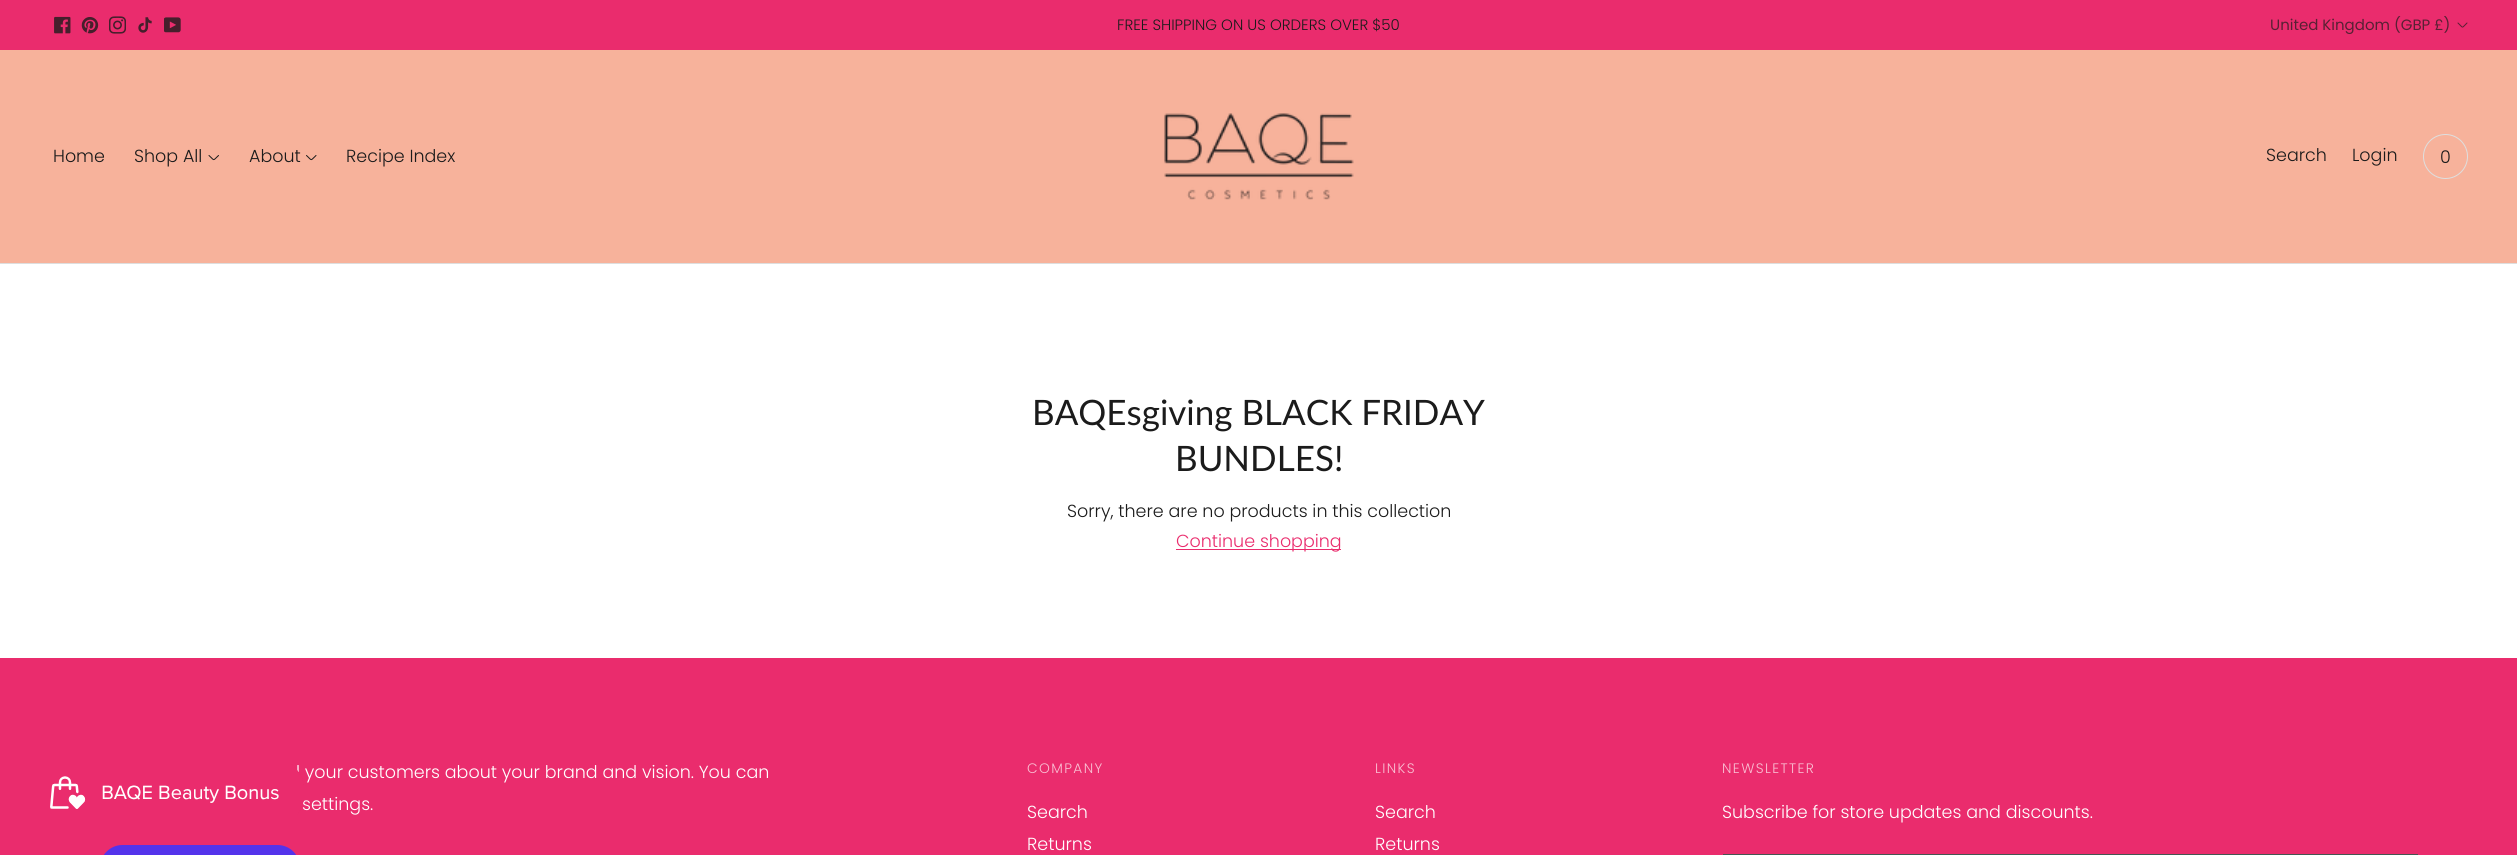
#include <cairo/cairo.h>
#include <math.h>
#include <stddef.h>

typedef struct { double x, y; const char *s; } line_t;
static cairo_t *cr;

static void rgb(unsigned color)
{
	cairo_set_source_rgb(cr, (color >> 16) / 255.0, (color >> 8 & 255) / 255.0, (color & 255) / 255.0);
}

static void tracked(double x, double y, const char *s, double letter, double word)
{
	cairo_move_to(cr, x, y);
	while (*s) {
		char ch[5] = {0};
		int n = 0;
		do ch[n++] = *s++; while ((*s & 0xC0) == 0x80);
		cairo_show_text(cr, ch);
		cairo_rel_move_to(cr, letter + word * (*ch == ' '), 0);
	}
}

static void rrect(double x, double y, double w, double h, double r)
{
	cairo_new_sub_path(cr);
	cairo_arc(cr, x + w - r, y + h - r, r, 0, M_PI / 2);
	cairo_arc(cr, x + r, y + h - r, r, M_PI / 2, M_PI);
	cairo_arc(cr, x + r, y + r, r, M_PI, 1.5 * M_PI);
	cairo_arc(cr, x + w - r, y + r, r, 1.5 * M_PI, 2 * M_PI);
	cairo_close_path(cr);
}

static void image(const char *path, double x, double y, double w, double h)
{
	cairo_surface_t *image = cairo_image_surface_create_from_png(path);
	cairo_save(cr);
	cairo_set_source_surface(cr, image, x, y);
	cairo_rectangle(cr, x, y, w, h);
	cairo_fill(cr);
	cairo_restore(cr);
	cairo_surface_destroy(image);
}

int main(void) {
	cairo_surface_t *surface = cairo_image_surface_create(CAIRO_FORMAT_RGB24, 2517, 855);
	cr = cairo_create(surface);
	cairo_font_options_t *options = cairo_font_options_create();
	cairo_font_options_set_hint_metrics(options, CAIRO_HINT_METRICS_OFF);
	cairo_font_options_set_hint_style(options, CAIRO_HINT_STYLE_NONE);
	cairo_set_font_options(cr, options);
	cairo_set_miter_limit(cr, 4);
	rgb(0xffffff);
	cairo_paint(cr);
	rgb(0xea2c6d);
	cairo_rectangle(cr, 0, 0, 2517, 50);
	cairo_fill(cr);
	image("img/1.png", 54, 16, 17, 18);
	image("img/2.png", 81, 17, 18, 17);
	image("img/3.png", 109, 16, 17, 18);
	image("img/4.png", 138, 17, 14, 16);
	image("img/5.png", 164, 17, 17, 16);
	cairo_new_path(cr);
	cairo_move_to(cr, 2458, 23);
	cairo_curve_to(cr, 2464, 28.5, 2461, 28.5, 2467, 23);
	rgb(0x592034);
	cairo_set_line_width(cr, 1);
	cairo_set_line_cap(cr, CAIRO_LINE_CAP_ROUND);
	cairo_set_line_join(cr, CAIRO_LINE_JOIN_ROUND);
	cairo_stroke(cr);
	rgb(0xf7b29b);
	cairo_rectangle(cr, 0, 50, 2517, 213);
	cairo_fill(cr);
	rgb(0xdedede);
	cairo_rectangle(cr, 0, 263, 2517, 1);
	cairo_fill(cr);
	cairo_new_path(cr);
	cairo_move_to(cr, 209, 155.5);
	cairo_curve_to(cr, 215, 161, 212.5, 161, 218.5, 155.5);
	rgb(0x1b1b1b);
	cairo_stroke(cr);
	cairo_new_path(cr);
	cairo_move_to(cr, 306.5, 155.5);
	cairo_curve_to(cr, 312.5, 161, 310, 161, 316, 155.5);
	cairo_stroke(cr);
	image("img/6.png", 1164, 113, 190, 87);
	cairo_arc(cr, 2445.5, 156.5, 22, 0, 2 * M_PI);
	rgb(0xdedede);
	cairo_set_line_cap(cr, CAIRO_LINE_CAP_BUTT);
	cairo_set_line_join(cr, CAIRO_LINE_JOIN_MITER);
	cairo_stroke(cr);
	rgb(0xea2c6d);
	cairo_rectangle(cr, 1176, 549, 165, 1);
	cairo_fill(cr);
	cairo_rectangle(cr, 0, 658, 2517, 197);
	cairo_fill(cr);
	rgb(0x5433eb);
	rrect(100, 845, 200, 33, 22.5);
	cairo_fill(cr);
	cairo_rectangle(cr, 1723.5, 854.5, 694, 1);
	rgb(0x465552);
	cairo_stroke(cr);
	cairo_select_font_face(cr, "Poppins Light", CAIRO_FONT_SLANT_NORMAL, CAIRO_FONT_WEIGHT_NORMAL);
	cairo_set_font_size(cr, 15);
	rgb(0x1b1b1b);
	cairo_move_to(cr, 1117, 30);
	cairo_show_text(cr, "FREE SHIPPING ON US ORDERS OVER $50");
	cairo_select_font_face(cr, "Poppins", CAIRO_FONT_SLANT_NORMAL, CAIRO_FONT_WEIGHT_NORMAL);
	rgb(0x592034);
	cairo_move_to(cr, 2270, 30);
	cairo_show_text(cr, "United Kingdom (GBP £)");
	cairo_select_font_face(cr, "Poppins Light", CAIRO_FONT_SLANT_NORMAL, CAIRO_FONT_WEIGHT_NORMAL);
	cairo_set_font_size(cr, 17.5);
	rgb(0x1b1b1b);
	{
		static const line_t items[] = {
			{53, 162, "Home"},
			{134, 162, "Shop All"},
			{249, 162, "About"},
			{346, 162, "Recipe Index"},
			{2266, 161, "Search"},
			{2352, 161, "Login"},
			{2440, 163, "0"},
		};
		for (size_t i = 0; i < sizeof items / sizeof *items; i++) {
			cairo_move_to(cr, items[i].x, items[i].y);
			cairo_show_text(cr, items[i].s);
		}
	}
	cairo_select_font_face(cr, "Lato", CAIRO_FONT_SLANT_NORMAL, CAIRO_FONT_WEIGHT_NORMAL);
	cairo_set_font_size(cr, 35);
	cairo_move_to(cr, 1032, 425);
	cairo_show_text(cr, "BAQEsgiving BLACK FRIDAY");
	cairo_move_to(cr, 1175, 471);
	cairo_show_text(cr, "BUNDLES!");
	cairo_select_font_face(cr, "Poppins Light", CAIRO_FONT_SLANT_NORMAL, CAIRO_FONT_WEIGHT_NORMAL);
	cairo_set_font_size(cr, 17.5);
	cairo_move_to(cr, 1067, 517);
	cairo_show_text(cr, "Sorry, there are no products in this collection");
	rgb(0xea2c6d);
	cairo_move_to(cr, 1176, 547);
	cairo_show_text(cr, "Continue shopping");
	rgb(0xffffff);
	cairo_move_to(cr, 296, 778);
	cairo_show_text(cr, "l your customers about your brand and vision. You can");
	cairo_move_to(cr, 302, 810);
	cairo_show_text(cr, "settings.");
	image("img/7.png", 50, 764, 254, 51);
	cairo_set_font_size(cr, 13.75);
	rgb(0xf9c0d3);
	tracked(1027, 773, "COMPANY", 1.4, 0);
	cairo_set_font_size(cr, 17.5);
	rgb(0xffffff);
	cairo_move_to(cr, 1027, 818);
	cairo_show_text(cr, "Search");
	cairo_move_to(cr, 1027, 850);
	cairo_show_text(cr, "Returns");
	cairo_set_font_size(cr, 13.75);
	rgb(0xf9c0d3);
	tracked(1375, 773, "LINKS", 1.4, 0);
	cairo_set_font_size(cr, 17.5);
	rgb(0xffffff);
	cairo_move_to(cr, 1375, 818);
	cairo_show_text(cr, "Search");
	cairo_move_to(cr, 1375, 850);
	cairo_show_text(cr, "Returns");
	cairo_set_font_size(cr, 13.75);
	rgb(0xf9c0d3);
	tracked(1722, 773, "NEWSLETTER", 1.4, 0);
	cairo_set_font_size(cr, 17.5);
	rgb(0xffffff);
	cairo_move_to(cr, 1722, 818);
	cairo_show_text(cr, "Subscribe for store updates and discounts.");
	cairo_surface_write_to_png(surface, "page.png");
	cairo_font_options_destroy(options);
	cairo_destroy(cr);
	cairo_surface_destroy(surface);
	return 0;
}
